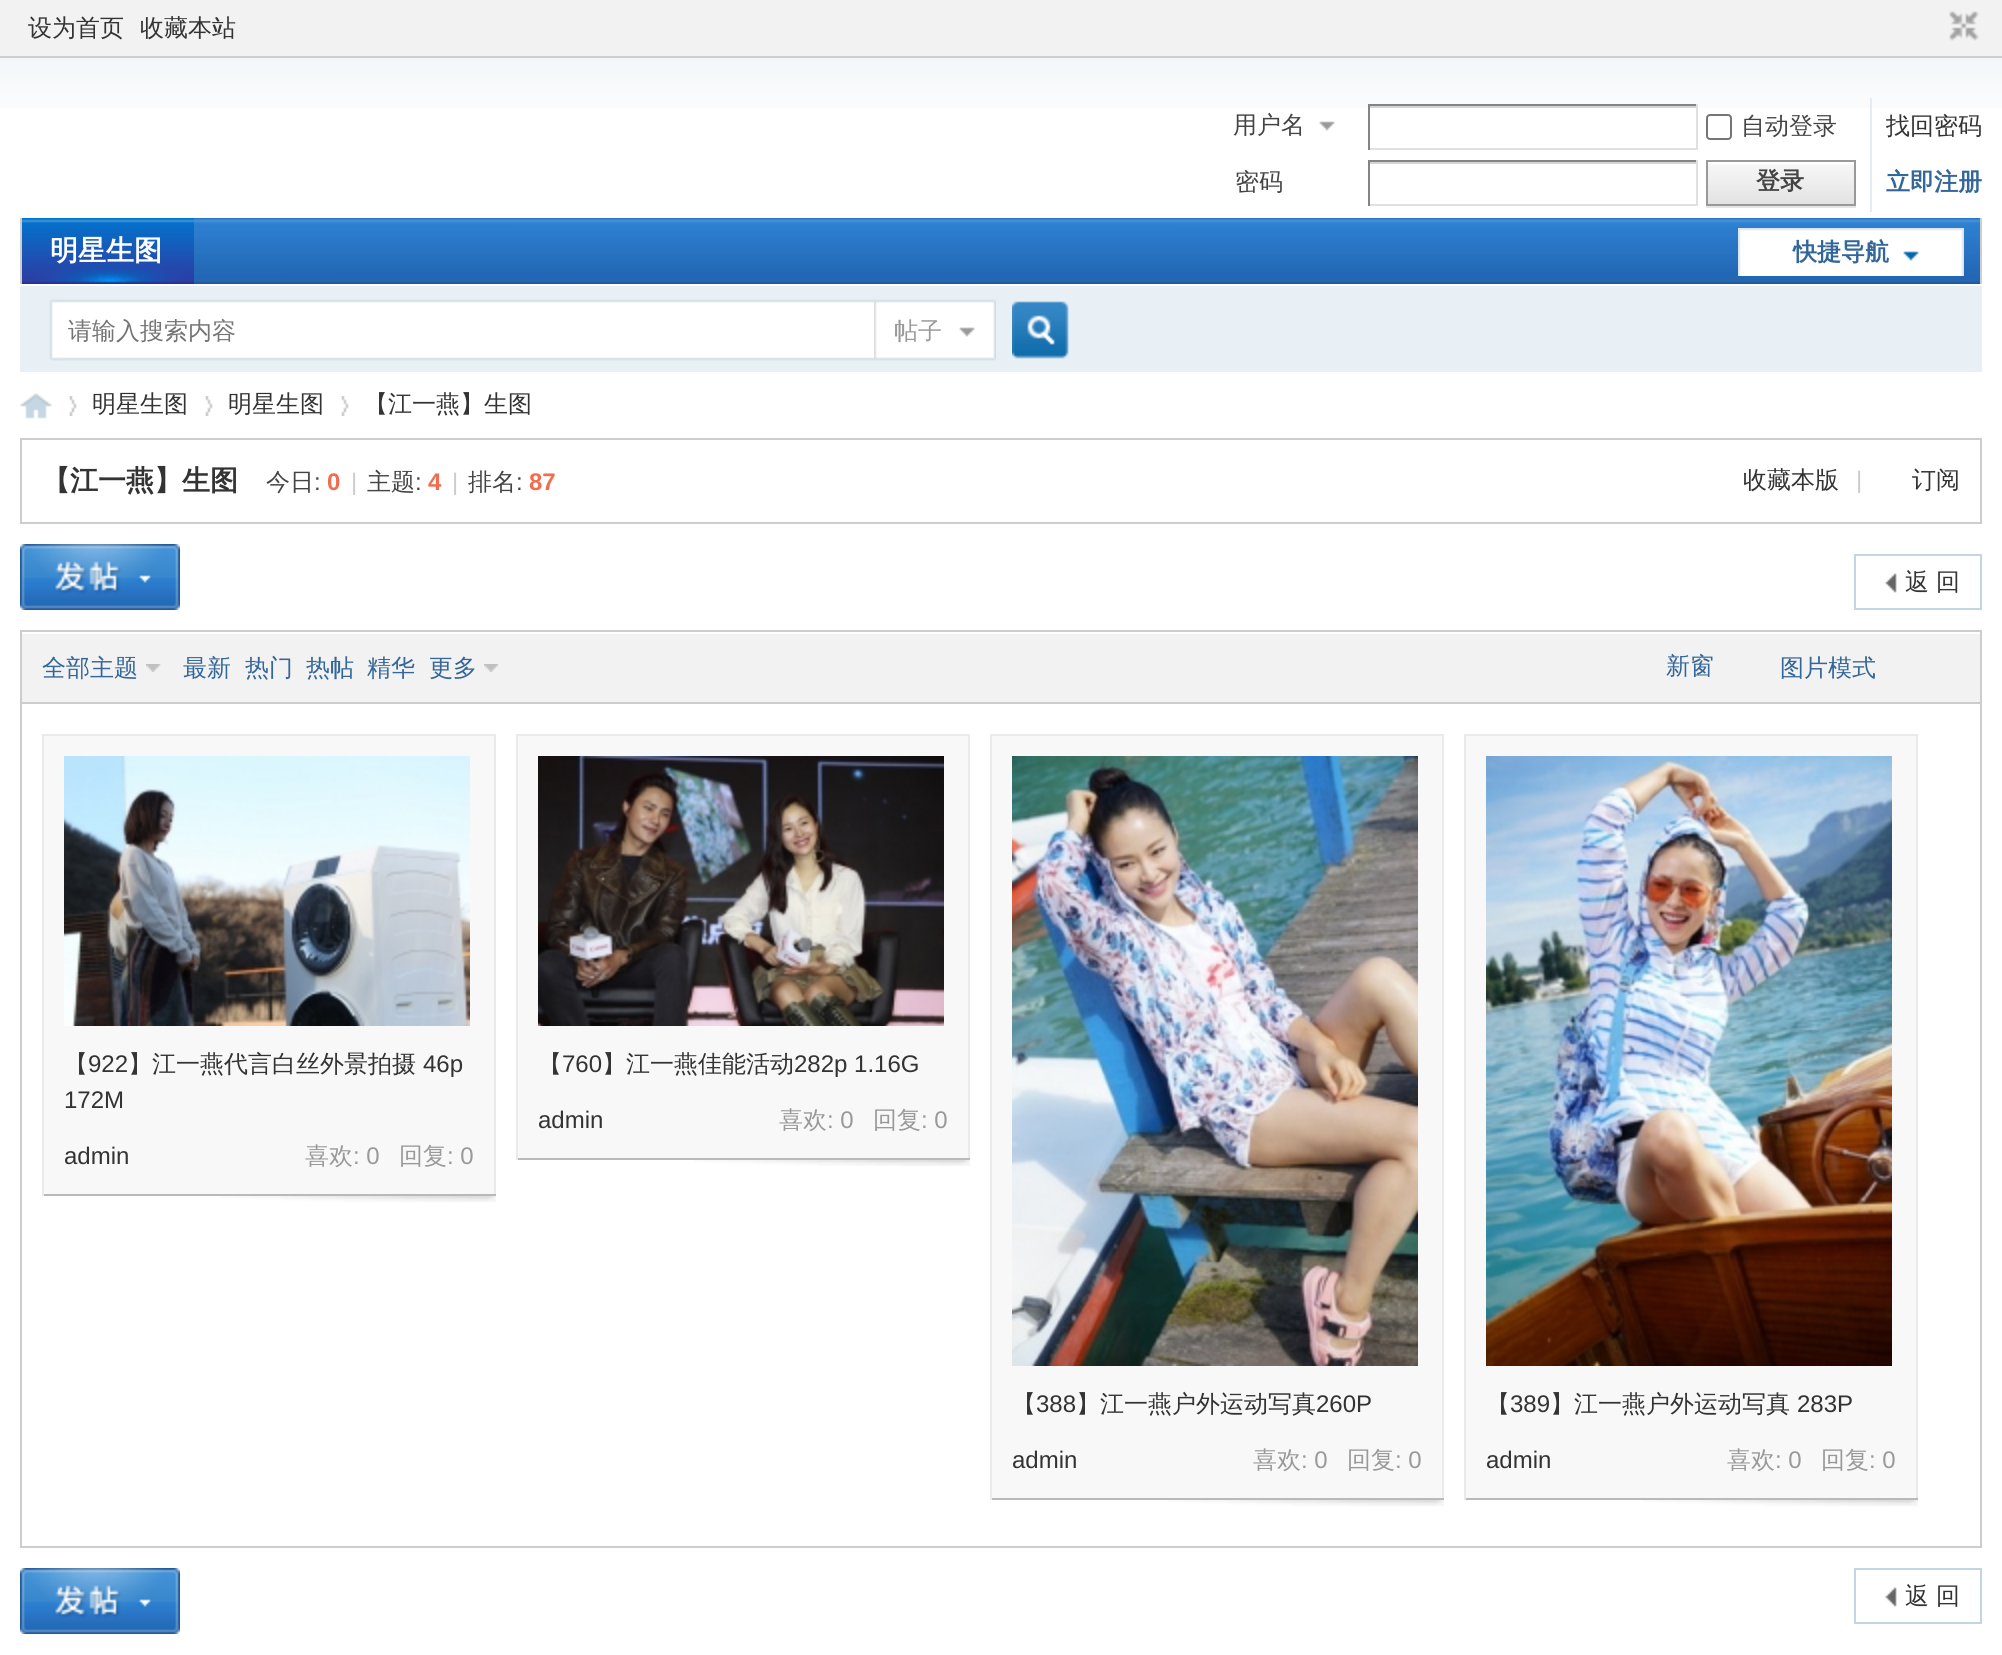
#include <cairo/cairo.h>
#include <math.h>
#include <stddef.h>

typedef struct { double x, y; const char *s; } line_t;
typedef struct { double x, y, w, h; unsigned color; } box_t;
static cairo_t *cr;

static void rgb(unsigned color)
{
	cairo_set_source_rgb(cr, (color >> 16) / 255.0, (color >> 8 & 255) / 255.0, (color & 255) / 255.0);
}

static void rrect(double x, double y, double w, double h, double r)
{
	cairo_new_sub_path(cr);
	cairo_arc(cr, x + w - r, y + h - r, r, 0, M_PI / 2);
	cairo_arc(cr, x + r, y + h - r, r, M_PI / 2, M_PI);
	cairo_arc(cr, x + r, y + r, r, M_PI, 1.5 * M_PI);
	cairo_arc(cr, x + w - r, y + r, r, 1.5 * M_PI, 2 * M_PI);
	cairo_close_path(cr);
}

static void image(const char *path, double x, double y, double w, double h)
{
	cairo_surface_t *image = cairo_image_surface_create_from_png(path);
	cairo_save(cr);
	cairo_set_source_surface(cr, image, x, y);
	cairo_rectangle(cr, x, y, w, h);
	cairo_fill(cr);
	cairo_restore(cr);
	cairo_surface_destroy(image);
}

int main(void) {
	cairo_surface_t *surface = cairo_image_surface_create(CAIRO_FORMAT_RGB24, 2002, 1655);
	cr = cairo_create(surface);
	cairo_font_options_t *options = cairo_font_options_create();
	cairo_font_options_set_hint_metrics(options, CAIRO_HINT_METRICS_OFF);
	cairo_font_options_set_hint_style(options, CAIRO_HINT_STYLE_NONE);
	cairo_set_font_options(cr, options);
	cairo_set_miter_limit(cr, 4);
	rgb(0xffffff);
	cairo_paint(cr);
	image("img/1.png", 0, 58, 2002, 50);
	rgb(0xf2f2f2);
	cairo_rectangle(cr, 0, 0, 2002, 56);
	cairo_fill(cr);
	rgb(0xcdcdcd);
	cairo_rectangle(cr, 0, 56, 2002, 2);
	cairo_fill(cr);
	image("img/2.png", 1949, 11, 30, 30);
	image("img/3.png", 1319, 121, 16, 10);
	{
		static const box_t items[] = {
			{1368, 106, 330, 2, 0xd4d4d4},
			{1368, 104, 330, 2, 0x848484},
			{1696, 104, 2, 46, 0xe0e0e0},
			{1368, 148, 330, 2, 0xe0e0e0},
			{1368, 104, 2, 46, 0x848484},
		};
		for (size_t i = 0; i < sizeof items / sizeof *items; i++) {
			rgb(items[i].color);
			cairo_rectangle(cr, items[i].x, items[i].y, items[i].w, items[i].h);
			cairo_fill(cr);
		}
	}
	rrect(1707, 115, 24, 24, 3);
	rgb(0x767676);
	cairo_stroke(cr);
	{
		static const box_t items[] = {
			{1368, 162, 330, 2, 0xd4d4d4},
			{1368, 160, 330, 2, 0x848484},
			{1696, 160, 2, 46, 0xe0e0e0},
			{1368, 204, 330, 2, 0xe0e0e0},
			{1368, 160, 2, 46, 0x848484},
			{1870, 98, 2, 114, 0xe5edf2},
			{1706, 206, 150, 2, 0xe5e5e5},
		};
		for (size_t i = 0; i < sizeof items / sizeof *items; i++) {
			rgb(items[i].color);
			cairo_rectangle(cr, items[i].x, items[i].y, items[i].w, items[i].h);
			cairo_fill(cr);
		}
	}
	image("img/4.png", 1708, 162, 146, 42);
	cairo_rectangle(cr, 1707, 161, 148, 44);
	rgb(0x999999);
	cairo_stroke(cr);
	image("img/5.png", 194, 218, 1786, 66);
	rgb(0xcdcdcd);
	cairo_rectangle(cr, 1980, 218, 2, 66);
	cairo_fill(cr);
	cairo_rectangle(cr, 20, 218, 2, 66);
	cairo_fill(cr);
	image("img/6.png", 22, 218, 172, 66);
	image("img/7.png", 1738, 228, 226, 48);
	rgb(0xe8eff5);
	cairo_rectangle(cr, 20, 286, 1962, 86);
	cairo_fill(cr);
	image("img/8.png", 49, 299, 13, 62);
	image("img/9.png", 62, 299, 812, 62);
	image("img/10.png", 874, 299, 122, 62);
	image("img/11.png", 1012, 301, 57, 58);
	image("img/12.png", 20, 393, 32, 26);
	image("img/13.png", 69, 396, 8, 20);
	image("img/13.png", 205, 396, 8, 20);
	image("img/13.png", 341, 396, 8, 20);
	cairo_rectangle(cr, 21, 439, 1960, 84);
	rgb(0xcdcdcd);
	cairo_stroke(cr);
	image("img/14.png", 20, 544, 160, 66);
	image("img/15.png", 1885, 573, 12, 20);
	cairo_rectangle(cr, 1855, 555, 126, 54);
	rgb(0xc2d5e3);
	cairo_stroke(cr);
	cairo_rectangle(cr, 21, 631, 1960, 916);
	rgb(0xcdcdcd);
	cairo_stroke(cr);
	rgb(0xf2f2f2);
	cairo_rectangle(cr, 22, 634, 1958, 68);
	cairo_fill(cr);
	rgb(0xcdcdcd);
	cairo_rectangle(cr, 22, 702, 1958, 2);
	cairo_fill(cr);
	image("img/16.png", 146, 664, 15, 8);
	image("img/16.png", 484, 664, 15, 8);
	image("img/17.png", 220, 1196, 276, 6);
	rgb(0xeaeaea);
	cairo_rectangle(cr, 42, 734, 454, 2);
	cairo_fill(cr);
	rgb(0xf8f8f8);
	cairo_rectangle(cr, 44, 736, 450, 458);
	cairo_fill(cr);
	image("img/18.png", 64, 756, 406, 270);
	{
		static const box_t items[] = {
			{494, 736, 2, 460, 0xeaeaea},
			{42, 736, 2, 402, 0xeaeaea},
			{42, 1194, 454, 2, 0xb9b9b9},
			{42, 1138, 2, 58, 0xeaeaea},
		};
		for (size_t i = 0; i < sizeof items / sizeof *items; i++) {
			rgb(items[i].color);
			cairo_rectangle(cr, items[i].x, items[i].y, items[i].w, items[i].h);
			cairo_fill(cr);
		}
	}
	image("img/17.png", 694, 1160, 276, 6);
	cairo_rectangle(cr, 516, 734, 454, 2);
	cairo_fill(cr);
	rgb(0xf8f8f8);
	cairo_rectangle(cr, 518, 736, 450, 422);
	cairo_fill(cr);
	image("img/19.png", 538, 756, 406, 270);
	{
		static const box_t items[] = {
			{968, 736, 2, 424, 0xeaeaea},
			{516, 736, 2, 366, 0xeaeaea},
			{516, 1158, 454, 2, 0xb9b9b9},
			{516, 1102, 2, 58, 0xeaeaea},
		};
		for (size_t i = 0; i < sizeof items / sizeof *items; i++) {
			rgb(items[i].color);
			cairo_rectangle(cr, items[i].x, items[i].y, items[i].w, items[i].h);
			cairo_fill(cr);
		}
	}
	image("img/17.png", 1168, 1500, 276, 6);
	cairo_rectangle(cr, 990, 734, 454, 2);
	cairo_fill(cr);
	rgb(0xf8f8f8);
	cairo_rectangle(cr, 992, 736, 450, 762);
	cairo_fill(cr);
	image("img/20.png", 1012, 756, 406, 610);
	{
		static const box_t items[] = {
			{1442, 736, 2, 764, 0xeaeaea},
			{990, 736, 2, 706, 0xeaeaea},
			{990, 1498, 454, 2, 0xb9b9b9},
			{990, 1442, 2, 58, 0xeaeaea},
		};
		for (size_t i = 0; i < sizeof items / sizeof *items; i++) {
			rgb(items[i].color);
			cairo_rectangle(cr, items[i].x, items[i].y, items[i].w, items[i].h);
			cairo_fill(cr);
		}
	}
	image("img/17.png", 1642, 1500, 276, 6);
	cairo_rectangle(cr, 1464, 734, 454, 2);
	cairo_fill(cr);
	rgb(0xf8f8f8);
	cairo_rectangle(cr, 1466, 736, 450, 762);
	cairo_fill(cr);
	image("img/21.png", 1486, 756, 406, 610);
	{
		static const box_t items[] = {
			{1916, 736, 2, 764, 0xeaeaea},
			{1464, 736, 2, 706, 0xeaeaea},
			{1464, 1498, 454, 2, 0xb9b9b9},
			{1464, 1442, 2, 58, 0xeaeaea},
		};
		for (size_t i = 0; i < sizeof items / sizeof *items; i++) {
			rgb(items[i].color);
			cairo_rectangle(cr, items[i].x, items[i].y, items[i].w, items[i].h);
			cairo_fill(cr);
		}
	}
	image("img/14.png", 20, 1568, 160, 66);
	image("img/15.png", 1885, 1587, 12, 20);
	cairo_rectangle(cr, 1855, 1569, 126, 54);
	rgb(0xc2d5e3);
	cairo_stroke(cr);
	cairo_select_font_face(cr, "WenQuanYi Zen Hei Medium", CAIRO_FONT_SLANT_NORMAL, CAIRO_FONT_WEIGHT_NORMAL);
	cairo_set_font_size(cr, 24);
	rgb(0x333333);
	cairo_move_to(cr, 28, 36);
	cairo_show_text(cr, "设为首页");
	cairo_move_to(cr, 140, 36);
	cairo_show_text(cr, "收藏本站");
	rgb(0x444444);
	cairo_move_to(cr, 1233, 133);
	cairo_show_text(cr, "用户名");
	cairo_move_to(cr, 1741, 134);
	cairo_show_text(cr, "自动登录");
	rgb(0x333333);
	cairo_move_to(cr, 1886, 134);
	cairo_show_text(cr, "找回密码");
	rgb(0x444444);
	cairo_move_to(cr, 1235, 190);
	cairo_show_text(cr, "密码");
	cairo_select_font_face(cr, "WenQuanYi Zen Hei", CAIRO_FONT_SLANT_NORMAL, CAIRO_FONT_WEIGHT_BOLD);
	cairo_move_to(cr, 1756, 189);
	cairo_show_text(cr, "登录");
	rgb(0x336699);
	cairo_move_to(cr, 1886, 190);
	cairo_show_text(cr, "立即注册");
	cairo_set_font_size(cr, 28);
	rgb(0xffffff);
	cairo_move_to(cr, 50, 260);
	cairo_show_text(cr, "明星生图");
	cairo_set_font_size(cr, 24);
	rgb(0x336699);
	cairo_move_to(cr, 1793, 260);
	cairo_show_text(cr, "快捷导航");
	cairo_select_font_face(cr, "WenQuanYi Zen Hei Medium", CAIRO_FONT_SLANT_NORMAL, CAIRO_FONT_WEIGHT_NORMAL);
	rgb(0x757575);
	cairo_move_to(cr, 68, 339);
	cairo_show_text(cr, "请输入搜索内容");
	rgb(0x999999);
	cairo_move_to(cr, 894, 339);
	cairo_show_text(cr, "帖子");
	rgb(0x333333);
	{
		static const line_t items[] = {
			{92, 412, "明星生图"},
			{228, 412, "明星生图"},
			{364, 412, "【江一燕】生图"},
		};
		for (size_t i = 0; i < sizeof items / sizeof *items; i++) {
			cairo_move_to(cr, items[i].x, items[i].y);
			cairo_show_text(cr, items[i].s);
		}
	}
	cairo_select_font_face(cr, "WenQuanYi Zen Hei", CAIRO_FONT_SLANT_NORMAL, CAIRO_FONT_WEIGHT_BOLD);
	cairo_set_font_size(cr, 28);
	cairo_move_to(cr, 42, 490);
	cairo_show_text(cr, "【江一燕】生图");
	cairo_select_font_face(cr, "WenQuanYi Zen Hei Medium", CAIRO_FONT_SLANT_NORMAL, CAIRO_FONT_WEIGHT_NORMAL);
	cairo_set_font_size(cr, 24);
	rgb(0x444444);
	cairo_move_to(cr, 266, 490);
	cairo_show_text(cr, "今日");
	cairo_select_font_face(cr, "Liberation Sans", CAIRO_FONT_SLANT_NORMAL, CAIRO_FONT_WEIGHT_NORMAL);
	cairo_move_to(cr, 314, 490);
	cairo_show_text(cr, ":");
	cairo_select_font_face(cr, "Liberation Sans", CAIRO_FONT_SLANT_NORMAL, CAIRO_FONT_WEIGHT_BOLD);
	rgb(0xf26c4f);
	cairo_move_to(cr, 327, 490);
	cairo_show_text(cr, "0");
	cairo_select_font_face(cr, "Liberation Sans", CAIRO_FONT_SLANT_NORMAL, CAIRO_FONT_WEIGHT_NORMAL);
	rgb(0xcccccc);
	cairo_move_to(cr, 351, 490);
	cairo_show_text(cr, "|");
	cairo_select_font_face(cr, "WenQuanYi Zen Hei Medium", CAIRO_FONT_SLANT_NORMAL, CAIRO_FONT_WEIGHT_NORMAL);
	rgb(0x444444);
	cairo_move_to(cr, 367, 490);
	cairo_show_text(cr, "主题");
	cairo_select_font_face(cr, "Liberation Sans", CAIRO_FONT_SLANT_NORMAL, CAIRO_FONT_WEIGHT_NORMAL);
	cairo_move_to(cr, 415, 490);
	cairo_show_text(cr, ":");
	cairo_select_font_face(cr, "Liberation Sans", CAIRO_FONT_SLANT_NORMAL, CAIRO_FONT_WEIGHT_BOLD);
	rgb(0xf26c4f);
	cairo_move_to(cr, 428, 490);
	cairo_show_text(cr, "4");
	cairo_select_font_face(cr, "Liberation Sans", CAIRO_FONT_SLANT_NORMAL, CAIRO_FONT_WEIGHT_NORMAL);
	rgb(0xcccccc);
	cairo_move_to(cr, 452, 490);
	cairo_show_text(cr, "|");
	cairo_select_font_face(cr, "WenQuanYi Zen Hei Medium", CAIRO_FONT_SLANT_NORMAL, CAIRO_FONT_WEIGHT_NORMAL);
	rgb(0x444444);
	cairo_move_to(cr, 468, 490);
	cairo_show_text(cr, "排名");
	cairo_select_font_face(cr, "Liberation Sans", CAIRO_FONT_SLANT_NORMAL, CAIRO_FONT_WEIGHT_NORMAL);
	cairo_move_to(cr, 516, 490);
	cairo_show_text(cr, ":");
	cairo_select_font_face(cr, "Liberation Sans", CAIRO_FONT_SLANT_NORMAL, CAIRO_FONT_WEIGHT_BOLD);
	rgb(0xf26c4f);
	cairo_move_to(cr, 529, 490);
	cairo_show_text(cr, "87");
	cairo_select_font_face(cr, "WenQuanYi Zen Hei Medium", CAIRO_FONT_SLANT_NORMAL, CAIRO_FONT_WEIGHT_NORMAL);
	rgb(0x333333);
	cairo_move_to(cr, 1743, 488);
	cairo_show_text(cr, "收藏本版");
	cairo_select_font_face(cr, "Liberation Sans", CAIRO_FONT_SLANT_NORMAL, CAIRO_FONT_WEIGHT_NORMAL);
	rgb(0xcccccc);
	cairo_move_to(cr, 1856, 488);
	cairo_show_text(cr, "|");
	cairo_select_font_face(cr, "WenQuanYi Zen Hei Medium", CAIRO_FONT_SLANT_NORMAL, CAIRO_FONT_WEIGHT_NORMAL);
	rgb(0x333333);
	{
		static const line_t items[] = {
			{1912, 488, "订阅"},
			{1905, 590, "返"},
			{1936, 590, "回"},
		};
		for (size_t i = 0; i < sizeof items / sizeof *items; i++) {
			cairo_move_to(cr, items[i].x, items[i].y);
			cairo_show_text(cr, items[i].s);
		}
	}
	rgb(0x336699);
	{
		static const line_t items[] = {
			{42, 676, "全部主题"},
			{183, 676, "最新"},
			{245, 676, "热门"},
			{306, 676, "热帖"},
			{367, 676, "精华"},
			{429, 676, "更多"},
			{1666, 674, "新窗"},
			{1780, 676, "图片模式"},
		};
		for (size_t i = 0; i < sizeof items / sizeof *items; i++) {
			cairo_move_to(cr, items[i].x, items[i].y);
			cairo_show_text(cr, items[i].s);
		}
	}
	rgb(0x333333);
	cairo_move_to(cr, 64, 1072);
	cairo_show_text(cr, "【");
	cairo_select_font_face(cr, "Liberation Sans", CAIRO_FONT_SLANT_NORMAL, CAIRO_FONT_WEIGHT_NORMAL);
	cairo_move_to(cr, 88, 1072);
	cairo_show_text(cr, "922");
	cairo_select_font_face(cr, "WenQuanYi Zen Hei Medium", CAIRO_FONT_SLANT_NORMAL, CAIRO_FONT_WEIGHT_NORMAL);
	cairo_move_to(cr, 128, 1072);
	cairo_show_text(cr, "】江一燕代言白丝外景拍摄");
	cairo_select_font_face(cr, "Liberation Sans", CAIRO_FONT_SLANT_NORMAL, CAIRO_FONT_WEIGHT_NORMAL);
	{
		static const line_t items[] = {
			{423, 1072, "46p"},
			{64, 1108, "172M"},
			{64, 1164, "admin"},
		};
		for (size_t i = 0; i < sizeof items / sizeof *items; i++) {
			cairo_move_to(cr, items[i].x, items[i].y);
			cairo_show_text(cr, items[i].s);
		}
	}
	cairo_select_font_face(cr, "WenQuanYi Zen Hei Medium", CAIRO_FONT_SLANT_NORMAL, CAIRO_FONT_WEIGHT_NORMAL);
	rgb(0x999999);
	cairo_move_to(cr, 305, 1164);
	cairo_show_text(cr, "喜欢");
	cairo_select_font_face(cr, "Liberation Sans", CAIRO_FONT_SLANT_NORMAL, CAIRO_FONT_WEIGHT_NORMAL);
	cairo_move_to(cr, 353, 1164);
	cairo_show_text(cr, ": 0");
	cairo_select_font_face(cr, "WenQuanYi Zen Hei Medium", CAIRO_FONT_SLANT_NORMAL, CAIRO_FONT_WEIGHT_NORMAL);
	cairo_move_to(cr, 399, 1164);
	cairo_show_text(cr, "回复");
	cairo_select_font_face(cr, "Liberation Sans", CAIRO_FONT_SLANT_NORMAL, CAIRO_FONT_WEIGHT_NORMAL);
	cairo_move_to(cr, 447, 1164);
	cairo_show_text(cr, ": 0");
	cairo_select_font_face(cr, "WenQuanYi Zen Hei Medium", CAIRO_FONT_SLANT_NORMAL, CAIRO_FONT_WEIGHT_NORMAL);
	rgb(0x333333);
	cairo_move_to(cr, 538, 1072);
	cairo_show_text(cr, "【");
	cairo_select_font_face(cr, "Liberation Sans", CAIRO_FONT_SLANT_NORMAL, CAIRO_FONT_WEIGHT_NORMAL);
	cairo_move_to(cr, 562, 1072);
	cairo_show_text(cr, "760");
	cairo_select_font_face(cr, "WenQuanYi Zen Hei Medium", CAIRO_FONT_SLANT_NORMAL, CAIRO_FONT_WEIGHT_NORMAL);
	cairo_move_to(cr, 602, 1072);
	cairo_show_text(cr, "】江一燕佳能活动");
	cairo_select_font_face(cr, "Liberation Sans", CAIRO_FONT_SLANT_NORMAL, CAIRO_FONT_WEIGHT_NORMAL);
	cairo_move_to(cr, 794, 1072);
	cairo_show_text(cr, "282p 1.16G");
	cairo_move_to(cr, 538, 1128);
	cairo_show_text(cr, "admin");
	cairo_select_font_face(cr, "WenQuanYi Zen Hei Medium", CAIRO_FONT_SLANT_NORMAL, CAIRO_FONT_WEIGHT_NORMAL);
	rgb(0x999999);
	cairo_move_to(cr, 779, 1128);
	cairo_show_text(cr, "喜欢");
	cairo_select_font_face(cr, "Liberation Sans", CAIRO_FONT_SLANT_NORMAL, CAIRO_FONT_WEIGHT_NORMAL);
	cairo_move_to(cr, 827, 1128);
	cairo_show_text(cr, ": 0");
	cairo_select_font_face(cr, "WenQuanYi Zen Hei Medium", CAIRO_FONT_SLANT_NORMAL, CAIRO_FONT_WEIGHT_NORMAL);
	cairo_move_to(cr, 873, 1128);
	cairo_show_text(cr, "回复");
	cairo_select_font_face(cr, "Liberation Sans", CAIRO_FONT_SLANT_NORMAL, CAIRO_FONT_WEIGHT_NORMAL);
	cairo_move_to(cr, 921, 1128);
	cairo_show_text(cr, ": 0");
	cairo_select_font_face(cr, "WenQuanYi Zen Hei Medium", CAIRO_FONT_SLANT_NORMAL, CAIRO_FONT_WEIGHT_NORMAL);
	rgb(0x333333);
	cairo_move_to(cr, 1012, 1412);
	cairo_show_text(cr, "【");
	cairo_select_font_face(cr, "Liberation Sans", CAIRO_FONT_SLANT_NORMAL, CAIRO_FONT_WEIGHT_NORMAL);
	cairo_move_to(cr, 1036, 1412);
	cairo_show_text(cr, "388");
	cairo_select_font_face(cr, "WenQuanYi Zen Hei Medium", CAIRO_FONT_SLANT_NORMAL, CAIRO_FONT_WEIGHT_NORMAL);
	cairo_move_to(cr, 1076, 1412);
	cairo_show_text(cr, "】江一燕户外运动写真");
	cairo_select_font_face(cr, "Liberation Sans", CAIRO_FONT_SLANT_NORMAL, CAIRO_FONT_WEIGHT_NORMAL);
	cairo_move_to(cr, 1316, 1412);
	cairo_show_text(cr, "260P");
	cairo_move_to(cr, 1012, 1468);
	cairo_show_text(cr, "admin");
	cairo_select_font_face(cr, "WenQuanYi Zen Hei Medium", CAIRO_FONT_SLANT_NORMAL, CAIRO_FONT_WEIGHT_NORMAL);
	rgb(0x999999);
	cairo_move_to(cr, 1253, 1468);
	cairo_show_text(cr, "喜欢");
	cairo_select_font_face(cr, "Liberation Sans", CAIRO_FONT_SLANT_NORMAL, CAIRO_FONT_WEIGHT_NORMAL);
	cairo_move_to(cr, 1301, 1468);
	cairo_show_text(cr, ": 0");
	cairo_select_font_face(cr, "WenQuanYi Zen Hei Medium", CAIRO_FONT_SLANT_NORMAL, CAIRO_FONT_WEIGHT_NORMAL);
	cairo_move_to(cr, 1347, 1468);
	cairo_show_text(cr, "回复");
	cairo_select_font_face(cr, "Liberation Sans", CAIRO_FONT_SLANT_NORMAL, CAIRO_FONT_WEIGHT_NORMAL);
	cairo_move_to(cr, 1395, 1468);
	cairo_show_text(cr, ": 0");
	cairo_select_font_face(cr, "WenQuanYi Zen Hei Medium", CAIRO_FONT_SLANT_NORMAL, CAIRO_FONT_WEIGHT_NORMAL);
	rgb(0x333333);
	cairo_move_to(cr, 1486, 1412);
	cairo_show_text(cr, "【");
	cairo_select_font_face(cr, "Liberation Sans", CAIRO_FONT_SLANT_NORMAL, CAIRO_FONT_WEIGHT_NORMAL);
	cairo_move_to(cr, 1510, 1412);
	cairo_show_text(cr, "389");
	cairo_select_font_face(cr, "WenQuanYi Zen Hei Medium", CAIRO_FONT_SLANT_NORMAL, CAIRO_FONT_WEIGHT_NORMAL);
	cairo_move_to(cr, 1550, 1412);
	cairo_show_text(cr, "】江一燕户外运动写真");
	cairo_select_font_face(cr, "Liberation Sans", CAIRO_FONT_SLANT_NORMAL, CAIRO_FONT_WEIGHT_NORMAL);
	cairo_move_to(cr, 1797, 1412);
	cairo_show_text(cr, "283P");
	cairo_move_to(cr, 1486, 1468);
	cairo_show_text(cr, "admin");
	cairo_select_font_face(cr, "WenQuanYi Zen Hei Medium", CAIRO_FONT_SLANT_NORMAL, CAIRO_FONT_WEIGHT_NORMAL);
	rgb(0x999999);
	cairo_move_to(cr, 1727, 1468);
	cairo_show_text(cr, "喜欢");
	cairo_select_font_face(cr, "Liberation Sans", CAIRO_FONT_SLANT_NORMAL, CAIRO_FONT_WEIGHT_NORMAL);
	cairo_move_to(cr, 1775, 1468);
	cairo_show_text(cr, ": 0");
	cairo_select_font_face(cr, "WenQuanYi Zen Hei Medium", CAIRO_FONT_SLANT_NORMAL, CAIRO_FONT_WEIGHT_NORMAL);
	cairo_move_to(cr, 1821, 1468);
	cairo_show_text(cr, "回复");
	cairo_select_font_face(cr, "Liberation Sans", CAIRO_FONT_SLANT_NORMAL, CAIRO_FONT_WEIGHT_NORMAL);
	cairo_move_to(cr, 1869, 1468);
	cairo_show_text(cr, ": 0");
	cairo_select_font_face(cr, "WenQuanYi Zen Hei Medium", CAIRO_FONT_SLANT_NORMAL, CAIRO_FONT_WEIGHT_NORMAL);
	rgb(0x333333);
	cairo_move_to(cr, 1905, 1604);
	cairo_show_text(cr, "返");
	cairo_move_to(cr, 1936, 1604);
	cairo_show_text(cr, "回");
	cairo_surface_write_to_png(surface, "page.png");
	cairo_font_options_destroy(options);
	cairo_destroy(cr);
	cairo_surface_destroy(surface);
	return 0;
}
